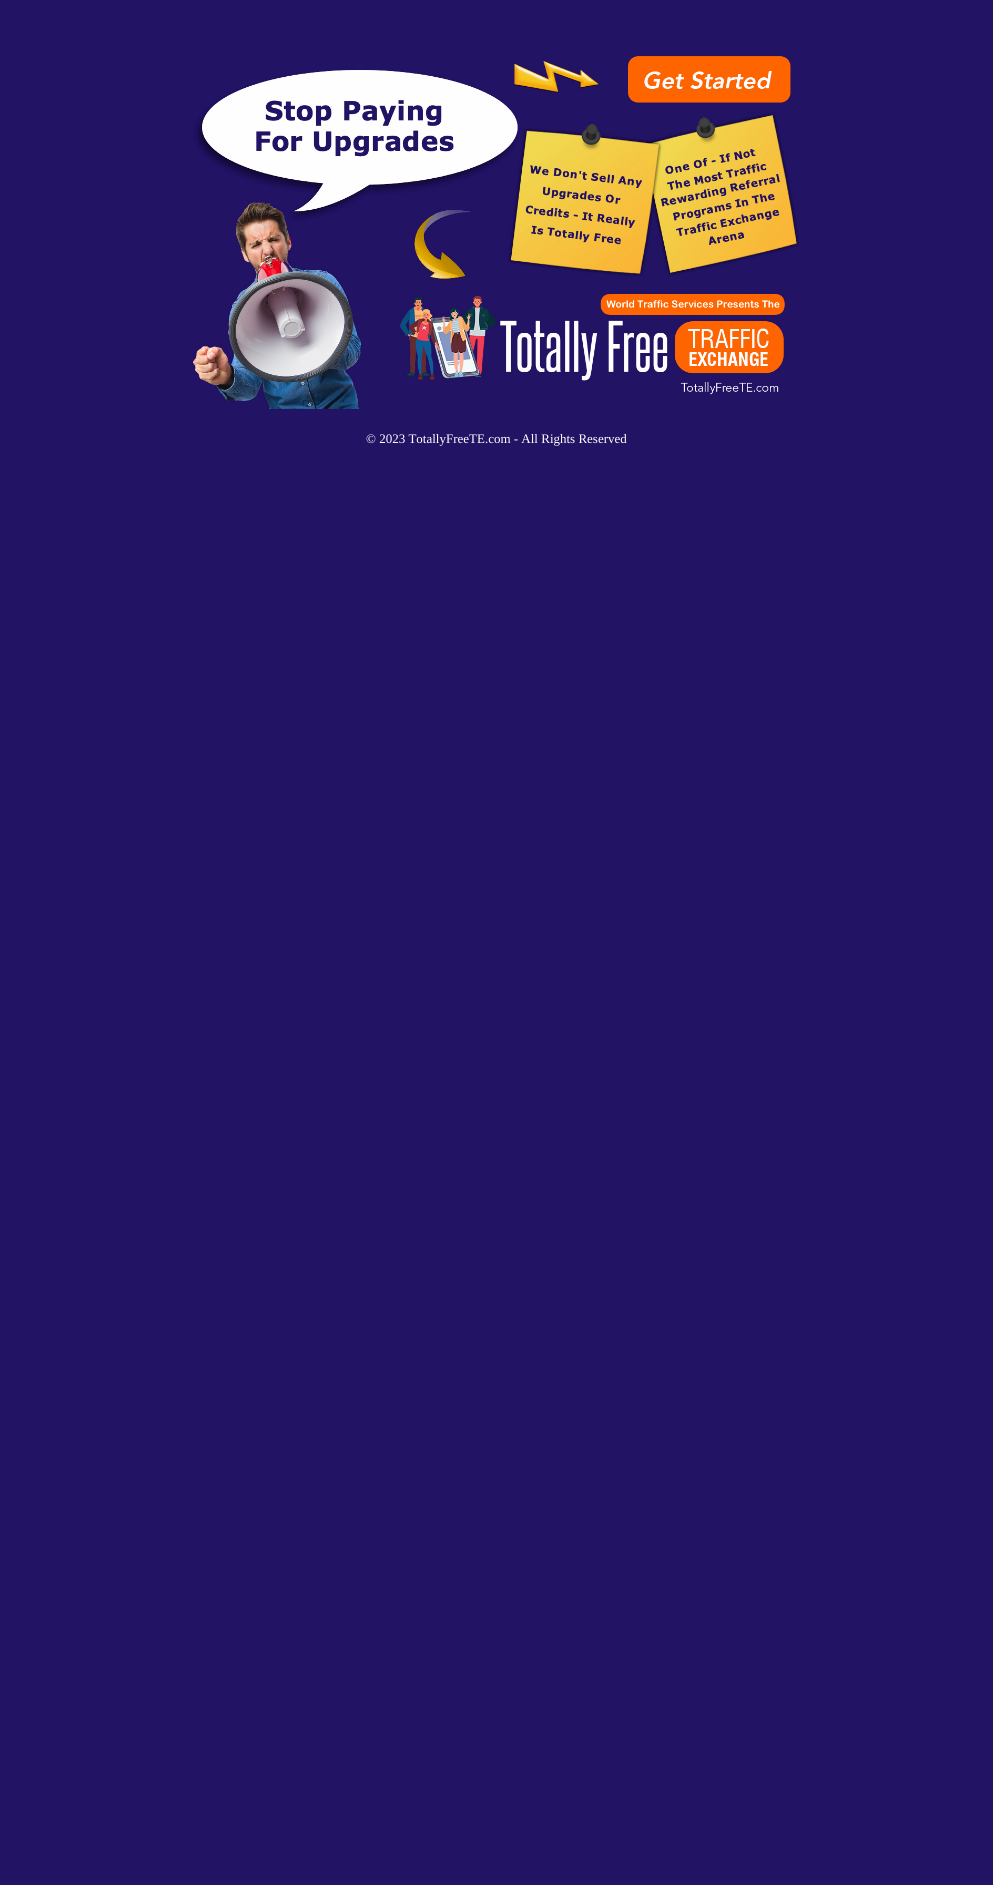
#include <cairo/cairo.h>
#include <math.h>
#include <stddef.h>

static cairo_t *cr;

static void rgb(unsigned color)
{
	cairo_set_source_rgb(cr, (color >> 16) / 255.0, (color >> 8 & 255) / 255.0, (color & 255) / 255.0);
}

static void image(const char *path, double x, double y, double w, double h)
{
	cairo_surface_t *image = cairo_image_surface_create_from_png(path);
	cairo_save(cr);
	cairo_set_source_surface(cr, image, x, y);
	cairo_rectangle(cr, x, y, w, h);
	cairo_fill(cr);
	cairo_restore(cr);
	cairo_surface_destroy(image);
}

int main(void) {
	cairo_surface_t *surface = cairo_image_surface_create(CAIRO_FORMAT_RGB24, 993, 1885);
	cr = cairo_create(surface);
	cairo_font_options_t *options = cairo_font_options_create();
	cairo_font_options_set_hint_metrics(options, CAIRO_HINT_METRICS_OFF);
	cairo_font_options_set_hint_style(options, CAIRO_HINT_STYLE_NONE);
	cairo_set_font_options(cr, options);
	cairo_set_miter_limit(cr, 4);
	rgb(0x231365);
	cairo_paint(cr);
	image("img/1.png", 193, 56, 606, 353);
	cairo_select_font_face(cr, "Liberation Serif", CAIRO_FONT_SLANT_NORMAL, CAIRO_FONT_WEIGHT_NORMAL);
	cairo_set_font_size(cr, 13);
	rgb(0xffffff);
	cairo_move_to(cr, 366, 443);
	cairo_show_text(cr, "© 2023 TotallyFreeTE.com - All Rights Reserved");
	cairo_surface_write_to_png(surface, "page.png");
	cairo_font_options_destroy(options);
	cairo_destroy(cr);
	cairo_surface_destroy(surface);
	return 0;
}
